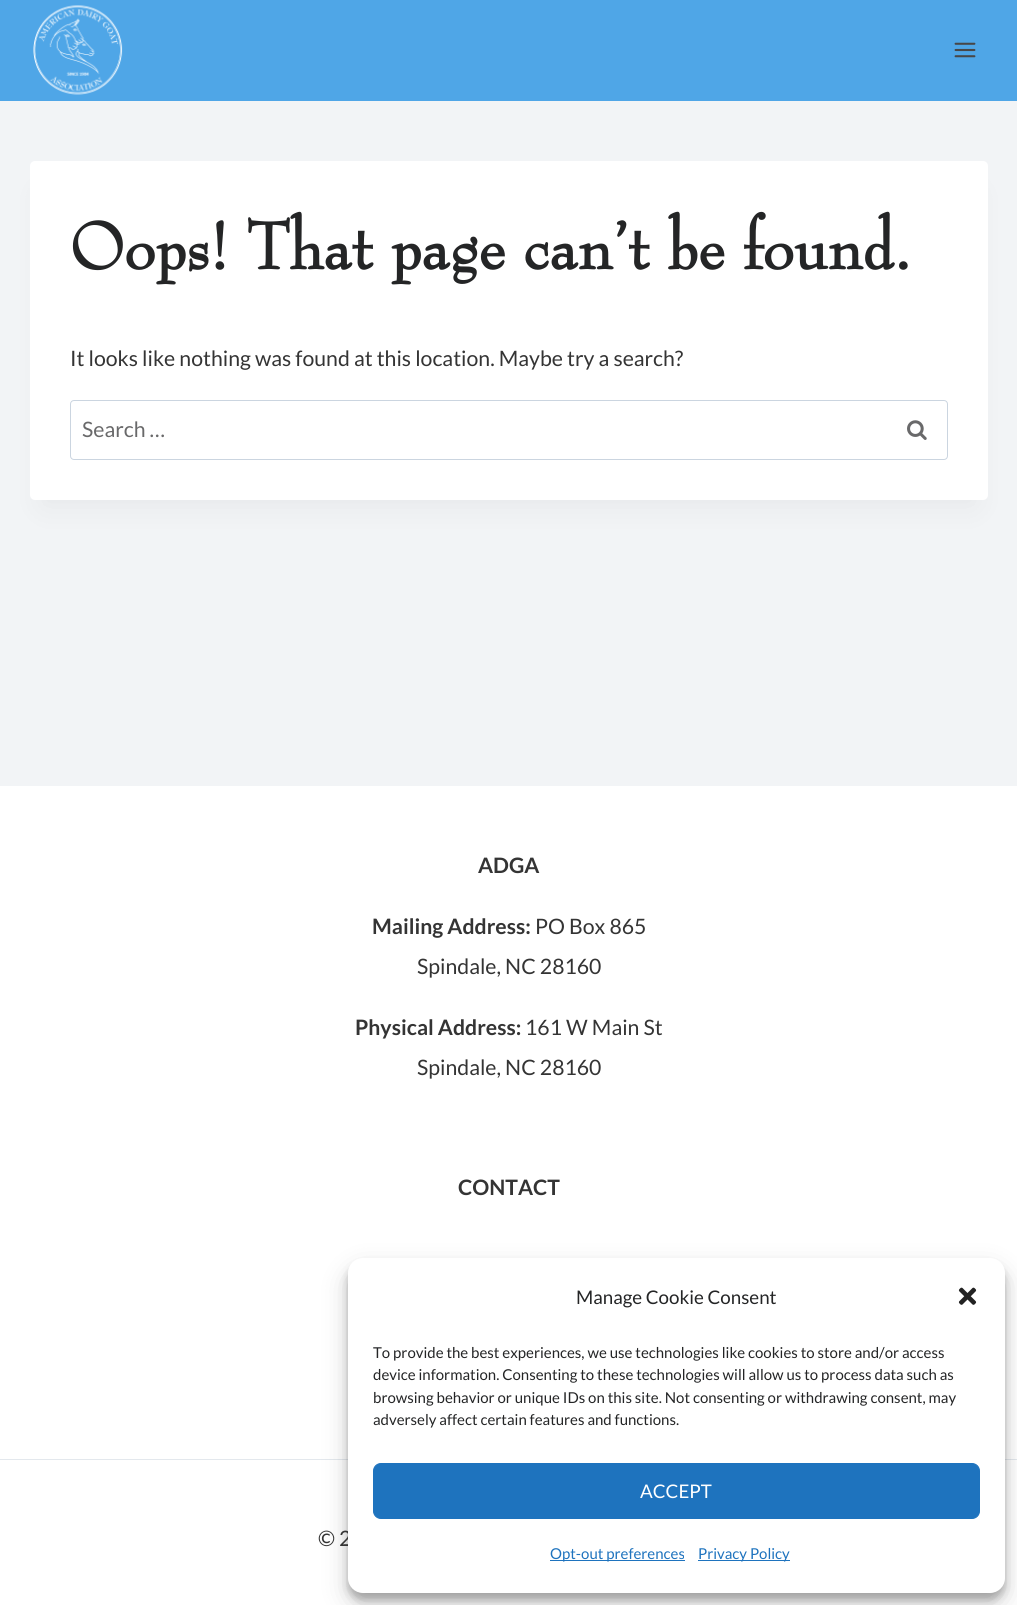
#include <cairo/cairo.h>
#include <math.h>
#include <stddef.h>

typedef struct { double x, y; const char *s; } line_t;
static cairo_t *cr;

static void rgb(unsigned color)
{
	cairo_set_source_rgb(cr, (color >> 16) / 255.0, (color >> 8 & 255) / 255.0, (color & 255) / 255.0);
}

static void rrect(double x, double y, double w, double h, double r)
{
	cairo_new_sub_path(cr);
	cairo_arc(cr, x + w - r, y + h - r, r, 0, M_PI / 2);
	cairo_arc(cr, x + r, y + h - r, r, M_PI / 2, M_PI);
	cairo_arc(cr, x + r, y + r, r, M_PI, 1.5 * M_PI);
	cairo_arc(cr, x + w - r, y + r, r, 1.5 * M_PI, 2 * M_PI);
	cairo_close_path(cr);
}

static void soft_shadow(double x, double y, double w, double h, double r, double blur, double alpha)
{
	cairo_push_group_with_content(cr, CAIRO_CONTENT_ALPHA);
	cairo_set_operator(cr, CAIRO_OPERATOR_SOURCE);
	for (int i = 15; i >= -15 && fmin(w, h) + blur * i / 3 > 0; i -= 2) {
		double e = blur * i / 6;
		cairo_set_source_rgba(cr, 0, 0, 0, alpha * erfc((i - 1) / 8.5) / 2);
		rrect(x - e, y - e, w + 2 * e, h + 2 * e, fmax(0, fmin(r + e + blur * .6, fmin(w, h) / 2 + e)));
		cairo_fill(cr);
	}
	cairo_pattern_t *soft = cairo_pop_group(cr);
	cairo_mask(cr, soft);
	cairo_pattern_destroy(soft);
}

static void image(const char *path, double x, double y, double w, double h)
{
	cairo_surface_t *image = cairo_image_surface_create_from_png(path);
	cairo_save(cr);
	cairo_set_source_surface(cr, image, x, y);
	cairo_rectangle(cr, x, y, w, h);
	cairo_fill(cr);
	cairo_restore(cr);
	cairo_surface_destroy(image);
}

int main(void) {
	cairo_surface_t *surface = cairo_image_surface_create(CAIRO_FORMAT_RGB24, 1017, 1605);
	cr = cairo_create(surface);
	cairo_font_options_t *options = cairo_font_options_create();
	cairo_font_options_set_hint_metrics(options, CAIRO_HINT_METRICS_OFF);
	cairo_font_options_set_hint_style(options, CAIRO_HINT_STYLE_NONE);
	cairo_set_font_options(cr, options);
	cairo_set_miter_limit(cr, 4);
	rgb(0xf2f4f6);
	cairo_paint(cr);
	rgb(0x4fa6e7);
	cairo_rectangle(cr, 0, 0, 1017, 101);
	cairo_fill(cr);
	image("img/1.png", 33, 5, 90, 90);
	image("img/2.png", 954, 42, 22, 16);
	rgb(0x000000);
	soft_shadow(43, 193, 932, 313, 0, 15.5, 0.05);
	rgb(0xffffff);
	rrect(30, 161, 958, 339, 5);
	cairo_fill(cr);
	rrect(70.5, 400.5, 877, 59, 3.5);
	rgb(0xcbd5e0);
	cairo_set_line_width(cr, 1);
	cairo_stroke(cr);
	image("img/3.png", 907, 420, 20, 20);
	rgb(0xffffff);
	cairo_rectangle(cr, 0, 786, 1017, 819);
	cairo_fill(cr);
	rgb(0xe3e8ed);
	cairo_rectangle(cr, 0, 1459, 1017, 1);
	cairo_fill(cr);
	rgb(0x000000);
	soft_shadow(348, 1265, 657, 335, 15, 4, 0.23);
	soft_shadow(348, 1270, 657, 335, 15, 12.5, 0.19);
	cairo_select_font_face(cr, "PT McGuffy", CAIRO_FONT_SLANT_NORMAL, CAIRO_FONT_WEIGHT_BOLD);
	cairo_set_font_size(cr, 65);
	rgb(0x242526);
	cairo_move_to(cr, 70, 269);
	cairo_show_text(cr, "Oops! That page can’t be found.");
	cairo_select_font_face(cr, "Lato", CAIRO_FONT_SLANT_NORMAL, CAIRO_FONT_WEIGHT_NORMAL);
	cairo_set_font_size(cr, 21.25);
	rgb(0x343434);
	cairo_move_to(cr, 70, 366);
	cairo_show_text(cr, "It looks like nothing was found at this location. Maybe try a search?");
	rgb(0x69696a);
	cairo_move_to(cr, 82, 437);
	cairo_show_text(cr, "Search …");
	cairo_select_font_face(cr, "Lato", CAIRO_FONT_SLANT_NORMAL, CAIRO_FONT_WEIGHT_BOLD);
	rgb(0x343434);
	cairo_move_to(cr, 478, 873);
	cairo_show_text(cr, "ADGA");
	cairo_move_to(cr, 372, 934);
	cairo_show_text(cr, "Mailing Address:");
	cairo_select_font_face(cr, "Lato", CAIRO_FONT_SLANT_NORMAL, CAIRO_FONT_WEIGHT_NORMAL);
	cairo_move_to(cr, 535, 934);
	cairo_show_text(cr, "PO Box 865");
	cairo_move_to(cr, 417, 974);
	cairo_show_text(cr, "Spindale, NC 28160");
	cairo_select_font_face(cr, "Lato", CAIRO_FONT_SLANT_NORMAL, CAIRO_FONT_WEIGHT_BOLD);
	cairo_move_to(cr, 355, 1035);
	cairo_show_text(cr, "Physical Address:");
	cairo_select_font_face(cr, "Lato", CAIRO_FONT_SLANT_NORMAL, CAIRO_FONT_WEIGHT_NORMAL);
	cairo_move_to(cr, 525, 1035);
	cairo_show_text(cr, "161 W Main St");
	cairo_move_to(cr, 417, 1075);
	cairo_show_text(cr, "Spindale, NC 28160");
	cairo_select_font_face(cr, "Lato", CAIRO_FONT_SLANT_NORMAL, CAIRO_FONT_WEIGHT_BOLD);
	cairo_move_to(cr, 458, 1195);
	cairo_show_text(cr, "CONTACT");
	cairo_select_font_face(cr, "Lato", CAIRO_FONT_SLANT_NORMAL, CAIRO_FONT_WEIGHT_NORMAL);
	cairo_move_to(cr, 318, 1546);
	cairo_show_text(cr, "© 2");
	rgb(0xffffff);
	rrect(348, 1258, 657, 335, 15);
	cairo_fill(cr);
	cairo_set_font_size(cr, 18.75);
	rgb(0x242526);
	cairo_move_to(cr, 576, 1304);
	cairo_show_text(cr, "Manage Cookie Consent");
	image("img/4.png", 958, 1287, 19, 18);
	cairo_set_font_size(cr, 15);
	{
		static const line_t items[] = {
			{373, 1358, "To provide the best experiences, we use technologies like cookies to store and/or access"},
			{373, 1380, "device information. Consenting to these technologies will allow us to process data such as"},
			{373, 1403, "browsing behavior or unique IDs on this site. Not consenting or withdrawing consent, may"},
			{373, 1425, "adversely affect certain features and functions."},
		};
		for (size_t i = 0; i < sizeof items / sizeof *items; i++) {
			cairo_move_to(cr, items[i].x, items[i].y);
			cairo_show_text(cr, items[i].s);
		}
	}
	rgb(0x1e73be);
	rrect(373.5, 1463.5, 606, 55, 7.5);
	cairo_fill_preserve(cr);
	cairo_stroke(cr);
	cairo_set_font_size(cr, 18.75);
	rgb(0xffffff);
	cairo_move_to(cr, 640, 1498);
	cairo_show_text(cr, "ACCEPT");
	rgb(0x1e73be);
	cairo_rectangle(cr, 550, 1560, 135, 1);
	cairo_fill(cr);
	cairo_set_font_size(cr, 15);
	cairo_move_to(cr, 550, 1559);
	cairo_show_text(cr, "Opt-out preferences");
	cairo_rectangle(cr, 698, 1560, 92, 1);
	cairo_fill(cr);
	cairo_move_to(cr, 698, 1559);
	cairo_show_text(cr, "Privacy Policy");
	cairo_surface_write_to_png(surface, "page.png");
	cairo_font_options_destroy(options);
	cairo_destroy(cr);
	cairo_surface_destroy(surface);
	return 0;
}
